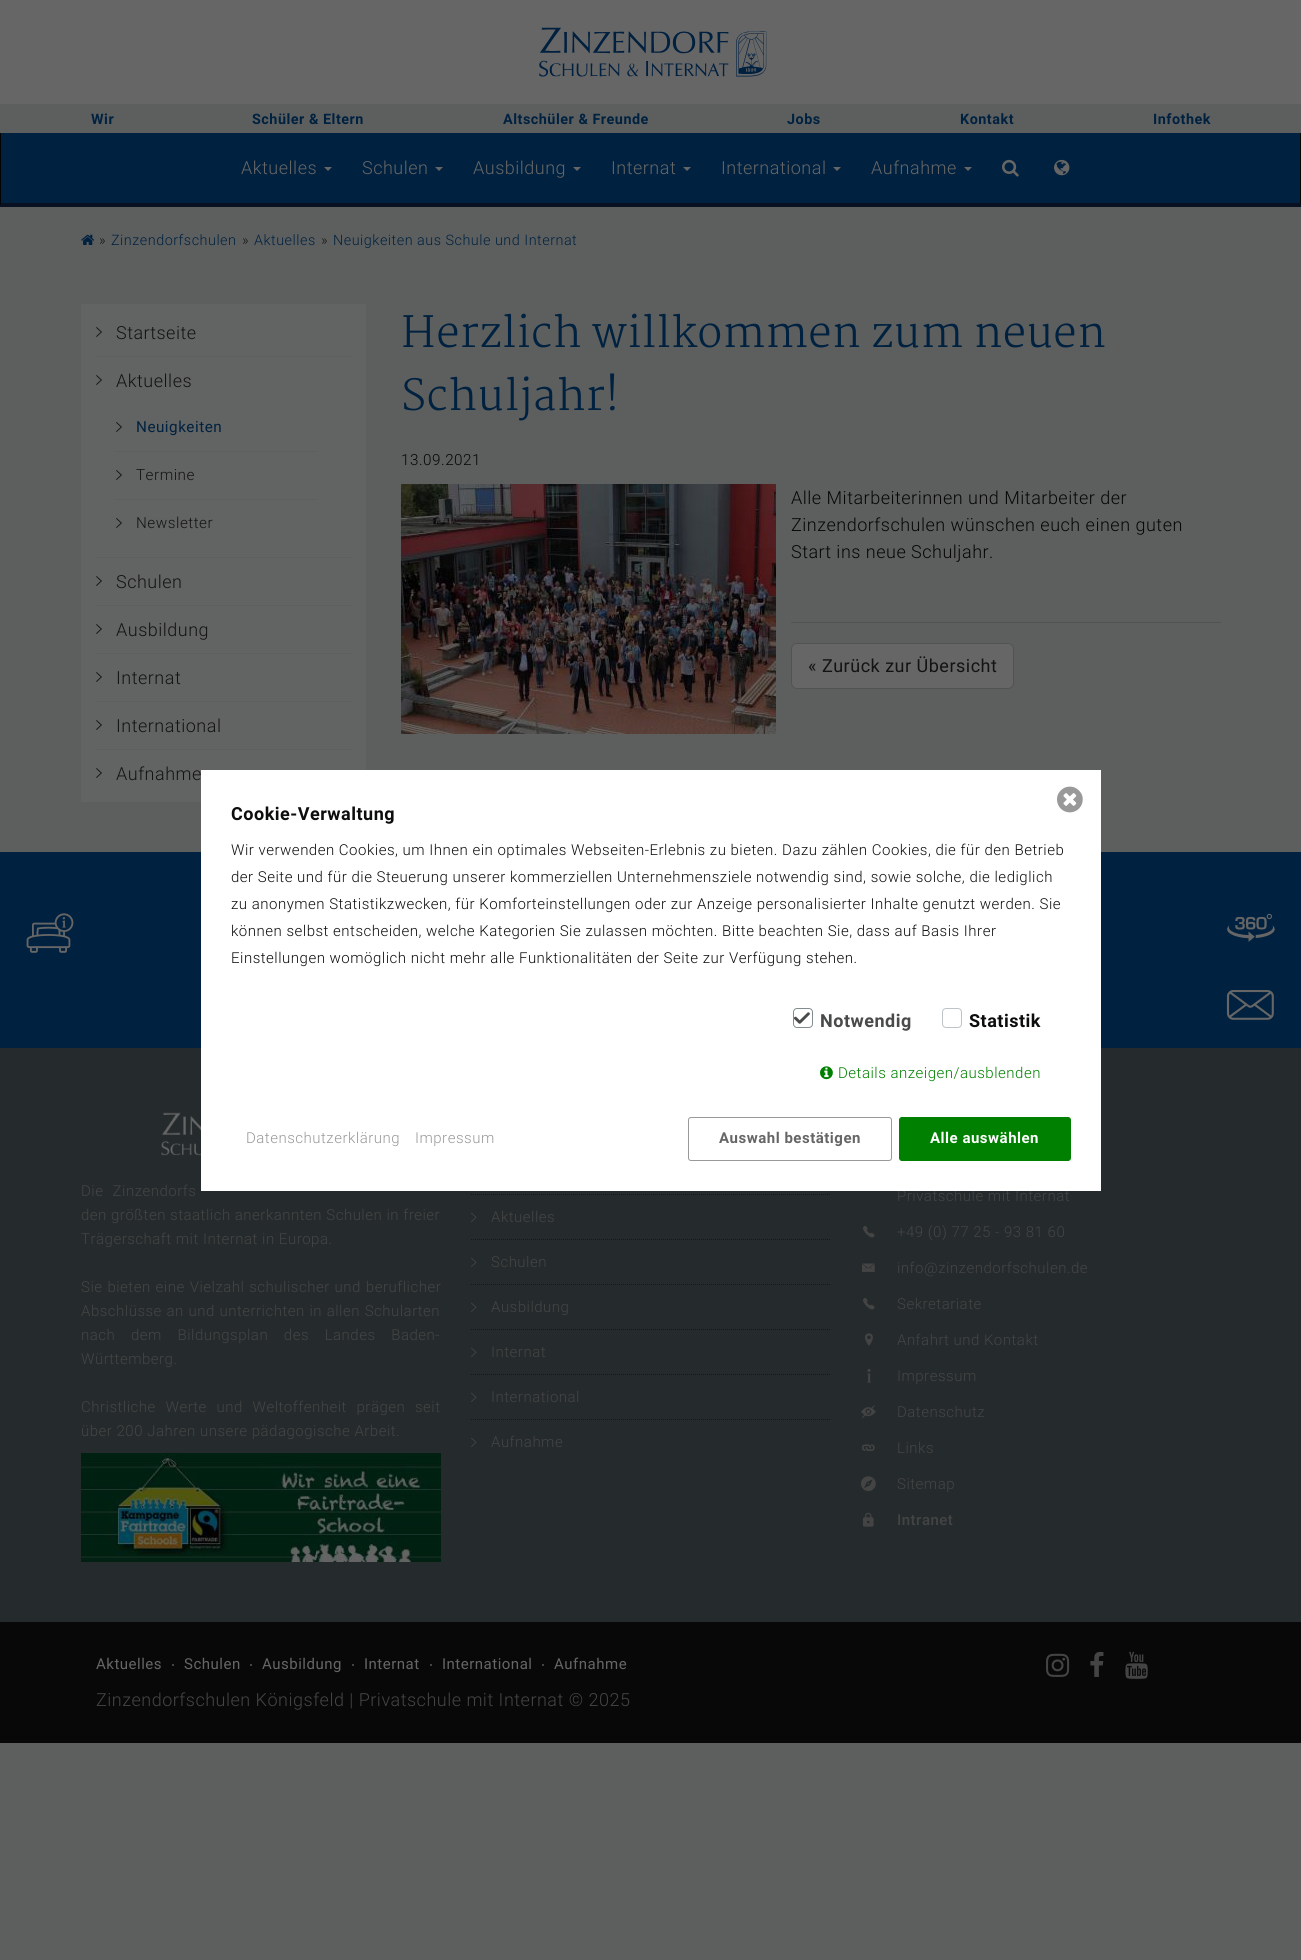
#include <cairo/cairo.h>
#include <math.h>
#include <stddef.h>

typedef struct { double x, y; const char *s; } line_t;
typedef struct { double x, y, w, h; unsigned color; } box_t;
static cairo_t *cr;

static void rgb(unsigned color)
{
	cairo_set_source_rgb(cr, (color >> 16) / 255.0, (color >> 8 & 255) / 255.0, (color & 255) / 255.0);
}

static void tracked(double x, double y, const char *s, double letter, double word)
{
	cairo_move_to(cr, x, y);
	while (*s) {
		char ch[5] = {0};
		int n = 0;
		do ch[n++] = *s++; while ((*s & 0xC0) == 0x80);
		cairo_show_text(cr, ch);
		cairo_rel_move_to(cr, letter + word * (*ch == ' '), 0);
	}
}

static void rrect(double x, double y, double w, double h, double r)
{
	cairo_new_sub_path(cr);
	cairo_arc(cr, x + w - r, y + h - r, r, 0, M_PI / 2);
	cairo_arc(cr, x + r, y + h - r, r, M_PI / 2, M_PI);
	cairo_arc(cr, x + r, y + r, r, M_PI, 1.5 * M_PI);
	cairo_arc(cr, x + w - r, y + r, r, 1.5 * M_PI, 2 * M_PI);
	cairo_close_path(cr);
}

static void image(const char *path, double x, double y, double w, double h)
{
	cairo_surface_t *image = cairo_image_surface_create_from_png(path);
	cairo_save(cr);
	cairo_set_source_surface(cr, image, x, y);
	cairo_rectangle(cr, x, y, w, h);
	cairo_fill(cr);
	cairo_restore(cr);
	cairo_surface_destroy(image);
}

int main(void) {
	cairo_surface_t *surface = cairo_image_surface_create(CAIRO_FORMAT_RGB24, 1301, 1960);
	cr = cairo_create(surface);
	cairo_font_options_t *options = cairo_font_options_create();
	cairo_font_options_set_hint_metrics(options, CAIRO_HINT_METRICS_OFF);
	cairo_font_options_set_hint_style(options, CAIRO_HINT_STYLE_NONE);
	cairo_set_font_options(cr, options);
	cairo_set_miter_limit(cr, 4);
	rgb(0x5d5f5f);
	cairo_paint(cr);
	rgb(0x666666);
	cairo_rectangle(cr, 0, 0, 1301, 104);
	cairo_fill(cr);
	image("img/1.png", 539, 27, 228, 50);
	rgb(0x00213f);
	cairo_rectangle(cr, 0, 133, 1301, 74);
	cairo_fill(cr);
	rgb(0x030303);
	cairo_new_path(cr);
	cairo_move_to(cr, 1301, 133);
	cairo_line_to(cr, 1301, 207);
	cairo_line_to(cr, 1300, 203);
	cairo_line_to(cr, 1300, 133);
	cairo_close_path(cr);
	cairo_fill(cr);
	rgb(0x091022);
	cairo_new_path(cr);
	cairo_move_to(cr, 1301, 207);
	cairo_line_to(cr, 0, 207);
	cairo_line_to(cr, 1, 203);
	cairo_line_to(cr, 1300, 203);
	cairo_close_path(cr);
	cairo_fill(cr);
	rgb(0x030303);
	cairo_new_path(cr);
	cairo_move_to(cr, 0, 207);
	cairo_line_to(cr, 0, 133);
	cairo_line_to(cr, 1, 133);
	cairo_line_to(cr, 1, 203);
	cairo_close_path(cr);
	cairo_fill(cr);
	rgb(0x666666);
	cairo_new_path(cr);
	cairo_move_to(cr, 324, 167);
	cairo_line_to(cr, 332, 167);
	cairo_line_to(cr, 328, 171);
	cairo_close_path(cr);
	cairo_fill(cr);
	cairo_new_path(cr);
	cairo_move_to(cr, 435, 167);
	cairo_line_to(cr, 443, 167);
	cairo_line_to(cr, 439, 171);
	cairo_close_path(cr);
	cairo_fill(cr);
	cairo_new_path(cr);
	cairo_move_to(cr, 573, 167);
	cairo_line_to(cr, 581, 167);
	cairo_line_to(cr, 577, 171);
	cairo_close_path(cr);
	cairo_fill(cr);
	cairo_new_path(cr);
	cairo_move_to(cr, 683, 167);
	cairo_line_to(cr, 691, 167);
	cairo_line_to(cr, 687, 171);
	cairo_close_path(cr);
	cairo_fill(cr);
	cairo_new_path(cr);
	cairo_move_to(cr, 833, 167);
	cairo_line_to(cr, 841, 167);
	cairo_line_to(cr, 837, 171);
	cairo_close_path(cr);
	cairo_fill(cr);
	cairo_new_path(cr);
	cairo_move_to(cr, 964, 167);
	cairo_line_to(cr, 972, 167);
	cairo_line_to(cr, 968, 171);
	cairo_close_path(cr);
	cairo_fill(cr);
	image("img/2.png", 1002, 159, 17, 18);
	image("img/3.png", 1054, 159, 16, 17);
	image("img/4.png", 81, 234, 14, 11);
	rgb(0x626363);
	cairo_rectangle(cr, 81, 304, 285, 498);
	cairo_fill(cr);
	cairo_new_path(cr);
	cairo_move_to(cr, 96, 356.5);
	cairo_line_to(cr, 351, 356.5);
	rgb(0x5a5a5a);
	cairo_set_line_width(cr, 1);
	cairo_set_dash(cr, (double[]){1, 1}, 2, 0);
	cairo_stroke(cr);
	image("img/5.png", 96, 327, 6, 10);
	cairo_new_path(cr);
	cairo_move_to(cr, 96, 557.5);
	cairo_line_to(cr, 351, 557.5);
	cairo_stroke(cr);
	image("img/5.png", 96, 375, 6, 10);
	cairo_new_path(cr);
	cairo_move_to(cr, 116, 451.5);
	cairo_line_to(cr, 316, 451.5);
	cairo_stroke(cr);
	image("img/5.png", 116, 422, 6, 10);
	cairo_new_path(cr);
	cairo_move_to(cr, 116, 499.5);
	cairo_line_to(cr, 316, 499.5);
	cairo_stroke(cr);
	image("img/5.png", 116, 470, 6, 10);
	image("img/5.png", 116, 518, 6, 10);
	cairo_new_path(cr);
	cairo_move_to(cr, 96, 605.5);
	cairo_line_to(cr, 351, 605.5);
	cairo_stroke(cr);
	image("img/5.png", 96, 576, 6, 10);
	cairo_new_path(cr);
	cairo_move_to(cr, 96, 653.5);
	cairo_line_to(cr, 351, 653.5);
	cairo_stroke(cr);
	image("img/5.png", 96, 624, 6, 10);
	cairo_new_path(cr);
	cairo_move_to(cr, 96, 701.5);
	cairo_line_to(cr, 351, 701.5);
	cairo_stroke(cr);
	image("img/5.png", 96, 672, 6, 10);
	cairo_new_path(cr);
	cairo_move_to(cr, 96, 749.5);
	cairo_line_to(cr, 351, 749.5);
	cairo_stroke(cr);
	image("img/5.png", 96, 720, 6, 10);
	image("img/5.png", 96, 768, 6, 10);
	image("img/6.png", 401, 484, 375, 250);
	rgb(0x525252);
	cairo_rectangle(cr, 791, 622, 430, 1);
	cairo_fill(cr);
	rgb(0x666666);
	rrect(791.5, 643.5, 222, 45, 5.5);
	cairo_fill_preserve(cr);
	rgb(0x525252);
	cairo_set_dash(cr, NULL, 0, 0);
	cairo_stroke(cr);
	rgb(0x00213f);
	cairo_rectangle(cr, 0, 852, 1301, 196);
	cairo_fill(cr);
	rgb(0x252a2c);
	cairo_rectangle(cr, 0, 1048, 1301, 574);
	cairo_fill(cr);
	image("img/7.png", 161, 1112, 40, 44);
	image("img/8.png", 81, 1453, 360, 109);
	cairo_new_path(cr);
	cairo_move_to(cr, 471, 1194.5);
	cairo_line_to(cr, 831, 1194.5);
	rgb(0x171717);
	cairo_set_dash(cr, (double[]){1, 1}, 2, 0);
	cairo_stroke(cr);
	cairo_new_path(cr);
	cairo_move_to(cr, 471, 1239.5);
	cairo_line_to(cr, 831, 1239.5);
	cairo_stroke(cr);
	image("img/9.png", 471, 1212, 6, 10);
	cairo_new_path(cr);
	cairo_move_to(cr, 471, 1284.5);
	cairo_line_to(cr, 831, 1284.5);
	cairo_stroke(cr);
	image("img/9.png", 471, 1257, 6, 10);
	cairo_new_path(cr);
	cairo_move_to(cr, 471, 1329.5);
	cairo_line_to(cr, 831, 1329.5);
	cairo_stroke(cr);
	image("img/9.png", 471, 1302, 6, 10);
	cairo_new_path(cr);
	cairo_move_to(cr, 471, 1374.5);
	cairo_line_to(cr, 831, 1374.5);
	cairo_stroke(cr);
	image("img/9.png", 471, 1347, 6, 10);
	cairo_new_path(cr);
	cairo_move_to(cr, 471, 1419.5);
	cairo_line_to(cr, 831, 1419.5);
	cairo_stroke(cr);
	image("img/9.png", 471, 1392, 6, 10);
	image("img/9.png", 471, 1437, 6, 10);
	image("img/10.png", 863, 1226, 12, 12);
	image("img/11.png", 862, 1263, 13, 9);
	image("img/10.png", 863, 1298, 12, 12);
	image("img/12.png", 865, 1333, 8, 13);
	image("img/13.png", 867, 1368, 5, 15);
	image("img/14.png", 861, 1405, 15, 13);
	image("img/15.png", 862, 1444, 13, 7);
	image("img/16.png", 861, 1476, 15, 15);
	image("img/17.png", 863, 1512, 11, 15);
	{
		static const box_t items[] = {
			{0, 1622, 1301, 121, 0x080808},
			{172, 1664, 2, 2, 0x444444},
			{250, 1664, 2, 2, 0x444444},
			{352, 1664, 2, 2, 0x444444},
			{430, 1664, 2, 2, 0x444444},
			{542, 1664, 2, 2, 0x444444},
		};
		for (size_t i = 0; i < sizeof items / sizeof *items; i++) {
			rgb(items[i].color);
			cairo_rectangle(cr, items[i].x, items[i].y, items[i].w, items[i].h);
			cairo_fill(cr);
		}
	}
	image("img/18.png", 1046, 1653, 24, 24);
	image("img/19.png", 1090, 1651, 14, 26);
	image("img/20.png", 1125, 1651, 23, 28);
	image("img/21.png", 26, 913, 48, 40);
	image("img/25.png", 1227, 913, 48, 29);
	image("img/26.png", 1226, 990, 48, 30);
	cairo_select_font_face(cr, "Roboto", CAIRO_FONT_SLANT_NORMAL, CAIRO_FONT_WEIGHT_BOLD);
	cairo_set_font_size(cr, 14.4);
	rgb(0x00213f);
	{
		static const line_t items[] = {
			{91, 124, "Wir"},
			{252, 124, "Schüler & Eltern"},
			{503, 124, "Altschüler & Freunde"},
			{787, 124, "Jobs"},
			{960, 124, "Kontakt"},
			{1153, 124, "Infothek"},
		};
		for (size_t i = 0; i < sizeof items / sizeof *items; i++) {
			tracked(items[i].x, items[i].y, items[i].s, 0.5, 0);
		}
	}
	cairo_select_font_face(cr, "Roboto Light", CAIRO_FONT_SLANT_NORMAL, CAIRO_FONT_WEIGHT_NORMAL);
	cairo_set_font_size(cr, 18);
	rgb(0x666666);
	{
		static const line_t items[] = {
			{241, 174, "Aktuelles"},
			{362, 174, "Schulen"},
			{473, 174, "Ausbildung"},
			{611, 174, "Internat"},
			{721, 174, "International"},
			{871, 174, "Aufnahme"},
		};
		for (size_t i = 0; i < sizeof items / sizeof *items; i++) {
			tracked(items[i].x, items[i].y, items[i].s, 0.5, 0);
		}
	}
	cairo_set_font_size(cr, 14.4);
	rgb(0x131313);
	tracked(99, 245, "»", 0.5, 0);
	rgb(0x00213f);
	tracked(111, 245, "Zinzendorfschulen", 0.5, 0);
	rgb(0x131313);
	tracked(242, 245, "»", 0.5, 0);
	rgb(0x00213f);
	tracked(254, 245, "Aktuelles", 0.5, 0);
	rgb(0x131313);
	tracked(321, 245, "»", 0.5, 0);
	rgb(0x00213f);
	tracked(333, 245, "Neuigkeiten aus Schule und Internat", 0.5, 0);
	cairo_set_font_size(cr, 18);
	rgb(0x131313);
	tracked(116, 339, "Startseite", 0.5, 0);
	tracked(116, 387, "Aktuelles", 0.5, 0);
	cairo_select_font_face(cr, "Roboto", CAIRO_FONT_SLANT_NORMAL, CAIRO_FONT_WEIGHT_NORMAL);
	cairo_set_font_size(cr, 15.25);
	rgb(0x00213f);
	tracked(136, 432, "Neuigkeiten", 0.5, 0);
	cairo_select_font_face(cr, "Roboto Light", CAIRO_FONT_SLANT_NORMAL, CAIRO_FONT_WEIGHT_NORMAL);
	rgb(0x131313);
	tracked(136, 480, "Termine", 0.5, 0);
	tracked(136, 528, "Newsletter", 0.5, 0);
	cairo_set_font_size(cr, 18);
	{
		static const line_t items[] = {
			{116, 588, "Schulen"},
			{116, 636, "Ausbildung"},
			{116, 684, "Internat"},
			{116, 732, "International"},
			{116, 780, "Aufnahme"},
		};
		for (size_t i = 0; i < sizeof items / sizeof *items; i++) {
			tracked(items[i].x, items[i].y, items[i].s, 0.5, 0);
		}
	}
	cairo_select_font_face(cr, "Martel Light", CAIRO_FONT_SLANT_NORMAL, CAIRO_FONT_WEIGHT_NORMAL);
	cairo_set_font_size(cr, 42);
	rgb(0x00213f);
	tracked(401, 347, "Herzlich willkommen zum neuen", 0.5, 0);
	tracked(401, 410, "Schuljahr!", 0.5, 0);
	cairo_select_font_face(cr, "Roboto Light", CAIRO_FONT_SLANT_NORMAL, CAIRO_FONT_WEIGHT_NORMAL);
	cairo_set_font_size(cr, 15.25);
	rgb(0x050605);
	tracked(401, 465, "13.09.2021", 0.5, 0);
	cairo_set_font_size(cr, 18);
	{
		static const line_t items[] = {
			{791, 504, "Alle Mitarbeiterinnen und Mitarbeiter der"},
			{791, 531, "Zinzendorfschulen wünschen euch einen guten"},
			{791, 558, "Start ins neue Schuljahr."},
		};
		for (size_t i = 0; i < sizeof items / sizeof *items; i++) {
			tracked(items[i].x, items[i].y, items[i].s, 0.5, 0);
		}
	}
	cairo_select_font_face(cr, "Roboto", CAIRO_FONT_SLANT_NORMAL, CAIRO_FONT_WEIGHT_NORMAL);
	rgb(0x131313);
	tracked(808, 672, "« Zurück zur Übersicht", 0.5, 0);
	cairo_select_font_face(cr, "Roboto Light", CAIRO_FONT_SLANT_NORMAL, CAIRO_FONT_WEIGHT_NORMAL);
	cairo_set_font_size(cr, 15);
	rgb(0x444444);
	tracked(81, 1196, "Die Zinzendorfs", 0.5, 5);
	tracked(81, 1220, "den größten staatlich anerkannten Schulen in freier", 0.5, 0);
	tracked(81, 1244, "Trägerschaft mit Internat in Europa.", 0.5, 0);
	tracked(81, 1292, "Sie bieten eine Vielzahl schulischer und beruflicher", 0.5, 0.75);
	tracked(81, 1316, "Abschlüsse an und unterrichten in allen Schularten", 0.5, 0.5);
	tracked(81, 1340, "nach dem Bildungsplan des Landes Baden-", 0.5, 11.5);
	tracked(81, 1364, "Württemberg.", 0.5, 0);
	tracked(81, 1412, "Christliche Werte und Weltoffenheit prägen seit", 0.5, 5.5);
	{
		static const line_t items[] = {
			{81, 1436, "über 200 Jahren unsere pädagogische Arbeit."},
			{491, 1222, "Aktuelles"},
			{491, 1267, "Schulen"},
			{491, 1312, "Ausbildung"},
			{491, 1357, "Internat"},
			{491, 1402, "International"},
			{491, 1447, "Aufnahme"},
			{897, 1201, "Privatschule mit Internat"},
			{897, 1237, "+49 (0) 77 25 - 93 81 60"},
			{897, 1273, "info@zinzendorfschulen.de"},
			{897, 1309, "Sekretariate"},
			{897, 1345, "Anfahrt und Kontakt"},
			{897, 1381, "Impressum"},
			{897, 1417, "Datenschutz"},
			{897, 1453, "Links"},
			{897, 1489, "Sitemap"},
		};
		for (size_t i = 0; i < sizeof items / sizeof *items; i++) {
			tracked(items[i].x, items[i].y, items[i].s, 0.5, 0);
		}
	}
	cairo_select_font_face(cr, "Roboto Medium", CAIRO_FONT_SLANT_NORMAL, CAIRO_FONT_WEIGHT_NORMAL);
	tracked(897, 1525, "Intranet", 0.5, 0);
	cairo_select_font_face(cr, "Roboto", CAIRO_FONT_SLANT_NORMAL, CAIRO_FONT_WEIGHT_NORMAL);
	rgb(0x666666);
	{
		static const line_t items[] = {
			{96, 1669, "Aktuelles"},
			{184, 1669, "Schulen"},
			{262, 1669, "Ausbildung"},
			{364, 1669, "Internat"},
			{442, 1669, "International"},
			{554, 1669, "Aufnahme"},
		};
		for (size_t i = 0; i < sizeof items / sizeof *items; i++) {
			tracked(items[i].x, items[i].y, items[i].s, 0.5, 0);
		}
	}
	cairo_select_font_face(cr, "Roboto Light", CAIRO_FONT_SLANT_NORMAL, CAIRO_FONT_WEIGHT_NORMAL);
	cairo_set_font_size(cr, 18);
	rgb(0x444444);
	tracked(96, 1706, "Zinzendorfschulen Königsfeld | Privatschule mit Internat © 2025", 0.5, 0);
	rgb(0xffffff);
	cairo_rectangle(cr, 201, 770, 900, 421);
	cairo_fill(cr);
	image("img/22.png", 1057, 786, 26, 27);
	cairo_select_font_face(cr, "Roboto", CAIRO_FONT_SLANT_NORMAL, CAIRO_FONT_WEIGHT_BOLD);
	rgb(0x0c0e0d);
	tracked(231, 820, "Cookie-Verwaltung", 0.5, 0);
	cairo_select_font_face(cr, "Roboto Light", CAIRO_FONT_SLANT_NORMAL, CAIRO_FONT_WEIGHT_NORMAL);
	cairo_set_font_size(cr, 15);
	{
		static const line_t items[] = {
			{231, 855, "Wir verwenden Cookies, um Ihnen ein optimales Webseiten-Erlebnis zu bieten. Dazu zählen Cookies, die für den Betrieb"},
			{231, 882, "der Seite und für die Steuerung unserer kommerziellen Unternehmensziele notwendig sind, sowie solche, die lediglich"},
			{231, 909, "zu anonymen Statistikzwecken, für Komforteinstellungen oder zur Anzeige personalisierter Inhalte genutzt werden. Sie"},
			{231, 936, "können selbst entscheiden, welche Kategorien Sie zulassen möchten. Bitte beachten Sie, dass auf Basis Ihrer"},
			{231, 963, "Einstellungen womöglich nicht mehr alle Funktionalitäten der Seite zur Verfügung stehen."},
		};
		for (size_t i = 0; i < sizeof items / sizeof *items; i++) {
			tracked(items[i].x, items[i].y, items[i].s, 0.5, 0);
		}
	}
	rrect(793.5, 1008.5, 19, 19, 3.5);
	rgb(0x838c90);
	cairo_set_dash(cr, NULL, 0, 0);
	cairo_stroke(cr);
	image("img/23.png", 794, 1012, 16, 12);
	cairo_select_font_face(cr, "Roboto", CAIRO_FONT_SLANT_NORMAL, CAIRO_FONT_WEIGHT_BOLD);
	cairo_set_font_size(cr, 18);
	rgb(0x494a4a);
	tracked(820, 1027, "Notwendig", 0.5, 0);
	rrect(942.5, 1008.5, 19, 19, 3.5);
	rgb(0xbdc3c7);
	cairo_stroke(cr);
	rgb(0x0c0e0d);
	tracked(969, 1027, "Statistik", 0.5, 0);
	image("img/24.png", 820, 1066, 13, 14);
	cairo_select_font_face(cr, "Roboto Light", CAIRO_FONT_SLANT_NORMAL, CAIRO_FONT_WEIGHT_NORMAL);
	cairo_set_font_size(cr, 15);
	rgb(0x008000);
	tracked(838, 1078, "Details anzeigen/ausblenden", 0.5, 0);
	rgb(0x999999);
	tracked(246, 1143, "Datenschutzerklärung", 0.5, 0);
	tracked(415, 1143, "Impressum", 0.5, 0);
	rrect(688.5, 1117.5, 203, 43, 2.5);
	cairo_stroke(cr);
	cairo_select_font_face(cr, "Roboto", CAIRO_FONT_SLANT_NORMAL, CAIRO_FONT_WEIGHT_BOLD);
	rgb(0x666666);
	tracked(719, 1143, "Auswahl bestätigen", 0.5, 0);
	rgb(0x008000);
	rrect(899.5, 1117.5, 171, 43, 2.5);
	cairo_fill_preserve(cr);
	cairo_stroke(cr);
	rgb(0xffffff);
	tracked(930, 1143, "Alle auswählen", 0.5, 0);
	cairo_surface_write_to_png(surface, "page.png");
	cairo_font_options_destroy(options);
	cairo_destroy(cr);
	cairo_surface_destroy(surface);
	return 0;
}
